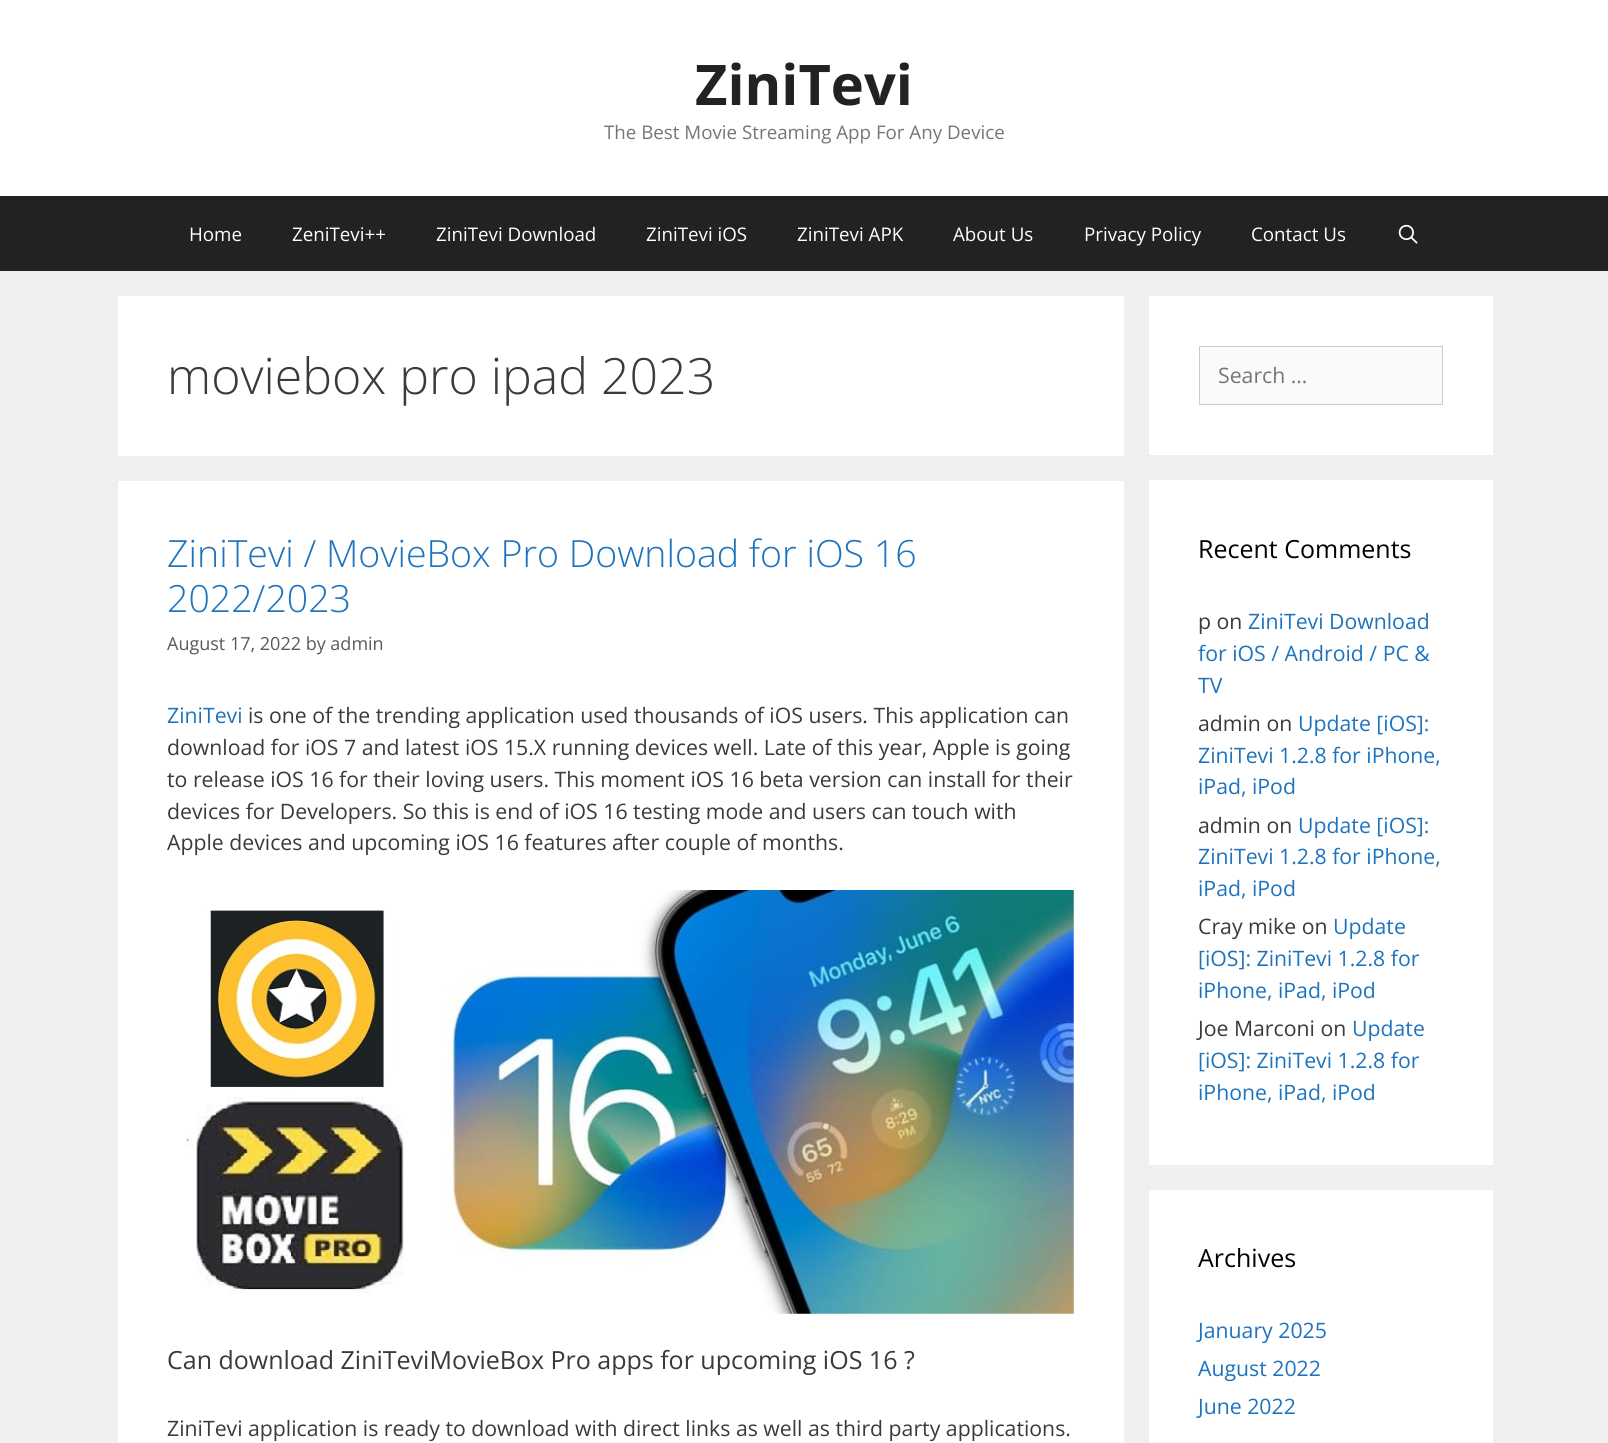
#include <cairo/cairo.h>
#include <math.h>
#include <stddef.h>

typedef struct { double x, y; const char *s; } line_t;
static cairo_t *cr;

static void rgb(unsigned color)
{
	cairo_set_source_rgb(cr, (color >> 16) / 255.0, (color >> 8 & 255) / 255.0, (color & 255) / 255.0);
}

static void image(const char *path, double x, double y, double w, double h)
{
	cairo_surface_t *image = cairo_image_surface_create_from_png(path);
	cairo_save(cr);
	cairo_set_source_surface(cr, image, x, y);
	cairo_rectangle(cr, x, y, w, h);
	cairo_fill(cr);
	cairo_restore(cr);
	cairo_surface_destroy(image);
}

int main(void) {
	cairo_surface_t *surface = cairo_image_surface_create(CAIRO_FORMAT_RGB24, 1608, 1443);
	cr = cairo_create(surface);
	cairo_font_options_t *options = cairo_font_options_create();
	cairo_font_options_set_hint_metrics(options, CAIRO_HINT_METRICS_OFF);
	cairo_font_options_set_hint_style(options, CAIRO_HINT_STYLE_NONE);
	cairo_set_font_options(cr, options);
	cairo_set_miter_limit(cr, 4);
	rgb(0xefefef);
	cairo_paint(cr);
	rgb(0xffffff);
	cairo_rectangle(cr, 0, 0, 1608, 196);
	cairo_fill(cr);
	rgb(0x222222);
	cairo_rectangle(cr, 0, 196, 1608, 75);
	cairo_fill(cr);
	image("img/1.png", 1398, 224, 20, 20);
	rgb(0xffffff);
	cairo_rectangle(cr, 118, 296, 1006, 160);
	cairo_fill(cr);
	cairo_rectangle(cr, 118, 481, 1006, 962);
	cairo_fill(cr);
	image("img/2.png", 184, 890, 890, 424);
	cairo_rectangle(cr, 1149, 296, 344, 159);
	cairo_fill(cr);
	rgb(0xfafafa);
	cairo_rectangle(cr, 1199.5, 346.5, 243, 58);
	cairo_fill_preserve(cr);
	rgb(0xcccccc);
	cairo_set_line_width(cr, 1);
	cairo_stroke(cr);
	rgb(0xffffff);
	cairo_rectangle(cr, 1149, 480, 344, 685);
	cairo_fill(cr);
	cairo_rectangle(cr, 1149, 1190, 344, 253);
	cairo_fill(cr);
	cairo_select_font_face(cr, "Open Sans", CAIRO_FONT_SLANT_NORMAL, CAIRO_FONT_WEIGHT_BOLD);
	cairo_set_font_size(cr, 56);
	rgb(0x222222);
	cairo_move_to(cr, 695, 105);
	cairo_show_text(cr, "ZiniTevi");
	cairo_select_font_face(cr, "Open Sans", CAIRO_FONT_SLANT_NORMAL, CAIRO_FONT_WEIGHT_NORMAL);
	cairo_set_font_size(cr, 18.75);
	rgb(0x757575);
	cairo_move_to(cr, 604, 139);
	cairo_show_text(cr, "The Best Movie Streaming App For Any Device");
	rgb(0xffffff);
	{
		static const line_t items[] = {
			{189, 241, "Home"},
			{292, 241, "ZeniTevi++"},
			{436, 241, "ZiniTevi Download"},
			{646, 241, "ZiniTevi iOS"},
			{797, 241, "ZiniTevi APK"},
			{953, 241, "About Us"},
			{1084, 241, "Privacy Policy"},
			{1251, 241, "Contact Us"},
		};
		for (size_t i = 0; i < sizeof items / sizeof *items; i++) {
			cairo_move_to(cr, items[i].x, items[i].y);
			cairo_show_text(cr, items[i].s);
		}
	}
	cairo_select_font_face(cr, "Open Sans Light", CAIRO_FONT_SLANT_NORMAL, CAIRO_FONT_WEIGHT_NORMAL);
	cairo_set_font_size(cr, 50);
	rgb(0x3a3a3a);
	cairo_move_to(cr, 167, 394);
	cairo_show_text(cr, "moviebox pro ipad 2023");
	cairo_set_font_size(cr, 37.5);
	rgb(0x1e73be);
	cairo_move_to(cr, 167, 567);
	cairo_show_text(cr, "ZiniTevi / MovieBox Pro Download for iOS 16");
	cairo_move_to(cr, 167, 612);
	cairo_show_text(cr, "2022/2023");
	cairo_select_font_face(cr, "Open Sans", CAIRO_FONT_SLANT_NORMAL, CAIRO_FONT_WEIGHT_NORMAL);
	cairo_set_font_size(cr, 18);
	rgb(0x595959);
	cairo_move_to(cr, 167, 650);
	cairo_show_text(cr, "August 17, 2022 by admin");
	cairo_set_font_size(cr, 21.25);
	rgb(0x1e73be);
	cairo_move_to(cr, 167, 723);
	cairo_show_text(cr, "ZiniTevi");
	rgb(0x3a3a3a);
	{
		static const line_t items[] = {
			{248, 723, "is one of the trending application used thousands of iOS users. This application can"},
			{167, 755, "download for iOS 7 and latest iOS 15.X running devices well. Late of this year, Apple is going"},
			{167, 787, "to release iOS 16 for their loving users. This moment iOS 16 beta version can install for their"},
			{167, 819, "devices for Developers. So this is end of iOS 16 testing mode and users can touch with"},
			{167, 850, "Apple devices and upcoming iOS 16 features after couple of months."},
		};
		for (size_t i = 0; i < sizeof items / sizeof *items; i++) {
			cairo_move_to(cr, items[i].x, items[i].y);
			cairo_show_text(cr, items[i].s);
		}
	}
	cairo_set_font_size(cr, 25);
	cairo_move_to(cr, 167, 1369);
	cairo_show_text(cr, "Can download ZiniTeviMovieBox Pro apps for upcoming iOS 16 ?");
	cairo_set_font_size(cr, 21.25);
	cairo_move_to(cr, 167, 1436);
	cairo_show_text(cr, "ZiniTevi application is ready to download with direct links as well as third party applications.");
	rgb(0x757575);
	cairo_move_to(cr, 1218, 383);
	cairo_show_text(cr, "Search …");
	cairo_set_font_size(cr, 25);
	rgb(0x000000);
	cairo_move_to(cr, 1198, 558);
	cairo_show_text(cr, "Recent Comments");
	cairo_set_font_size(cr, 21.25);
	rgb(0x3a3a3a);
	cairo_move_to(cr, 1198, 629);
	cairo_show_text(cr, "p on");
	rgb(0x1e73be);
	{
		static const line_t items[] = {
			{1248, 629, "ZiniTevi Download"},
			{1198, 661, "for iOS / Android / PC &"},
			{1198, 693, "TV"},
		};
		for (size_t i = 0; i < sizeof items / sizeof *items; i++) {
			cairo_move_to(cr, items[i].x, items[i].y);
			cairo_show_text(cr, items[i].s);
		}
	}
	rgb(0x3a3a3a);
	cairo_move_to(cr, 1198, 731);
	cairo_show_text(cr, "admin on");
	rgb(0x1e73be);
	{
		static const line_t items[] = {
			{1298, 731, "Update [iOS]:"},
			{1198, 763, "ZiniTevi 1.2.8 for iPhone,"},
			{1198, 794, "iPad, iPod"},
		};
		for (size_t i = 0; i < sizeof items / sizeof *items; i++) {
			cairo_move_to(cr, items[i].x, items[i].y);
			cairo_show_text(cr, items[i].s);
		}
	}
	rgb(0x3a3a3a);
	cairo_move_to(cr, 1198, 833);
	cairo_show_text(cr, "admin on");
	rgb(0x1e73be);
	{
		static const line_t items[] = {
			{1298, 833, "Update [iOS]:"},
			{1198, 864, "ZiniTevi 1.2.8 for iPhone,"},
			{1198, 896, "iPad, iPod"},
		};
		for (size_t i = 0; i < sizeof items / sizeof *items; i++) {
			cairo_move_to(cr, items[i].x, items[i].y);
			cairo_show_text(cr, items[i].s);
		}
	}
	rgb(0x3a3a3a);
	cairo_move_to(cr, 1198, 934);
	cairo_show_text(cr, "Cray mike on");
	rgb(0x1e73be);
	{
		static const line_t items[] = {
			{1333, 934, "Update"},
			{1198, 966, "[iOS]: ZiniTevi 1.2.8 for"},
			{1198, 998, "iPhone, iPad, iPod"},
		};
		for (size_t i = 0; i < sizeof items / sizeof *items; i++) {
			cairo_move_to(cr, items[i].x, items[i].y);
			cairo_show_text(cr, items[i].s);
		}
	}
	rgb(0x3a3a3a);
	cairo_move_to(cr, 1198, 1036);
	cairo_show_text(cr, "Joe Marconi on");
	rgb(0x1e73be);
	{
		static const line_t items[] = {
			{1352, 1036, "Update"},
			{1198, 1068, "[iOS]: ZiniTevi 1.2.8 for"},
			{1198, 1100, "iPhone, iPad, iPod"},
		};
		for (size_t i = 0; i < sizeof items / sizeof *items; i++) {
			cairo_move_to(cr, items[i].x, items[i].y);
			cairo_show_text(cr, items[i].s);
		}
	}
	cairo_set_font_size(cr, 25);
	rgb(0x000000);
	cairo_move_to(cr, 1198, 1267);
	cairo_show_text(cr, "Archives");
	cairo_set_font_size(cr, 21.25);
	rgb(0x1e73be);
	{
		static const line_t items[] = {
			{1198, 1338, "January 2025"},
			{1198, 1376, "August 2022"},
			{1198, 1414, "June 2022"},
		};
		for (size_t i = 0; i < sizeof items / sizeof *items; i++) {
			cairo_move_to(cr, items[i].x, items[i].y);
			cairo_show_text(cr, items[i].s);
		}
	}
	cairo_surface_write_to_png(surface, "page.png");
	cairo_font_options_destroy(options);
	cairo_destroy(cr);
	cairo_surface_destroy(surface);
	return 0;
}
